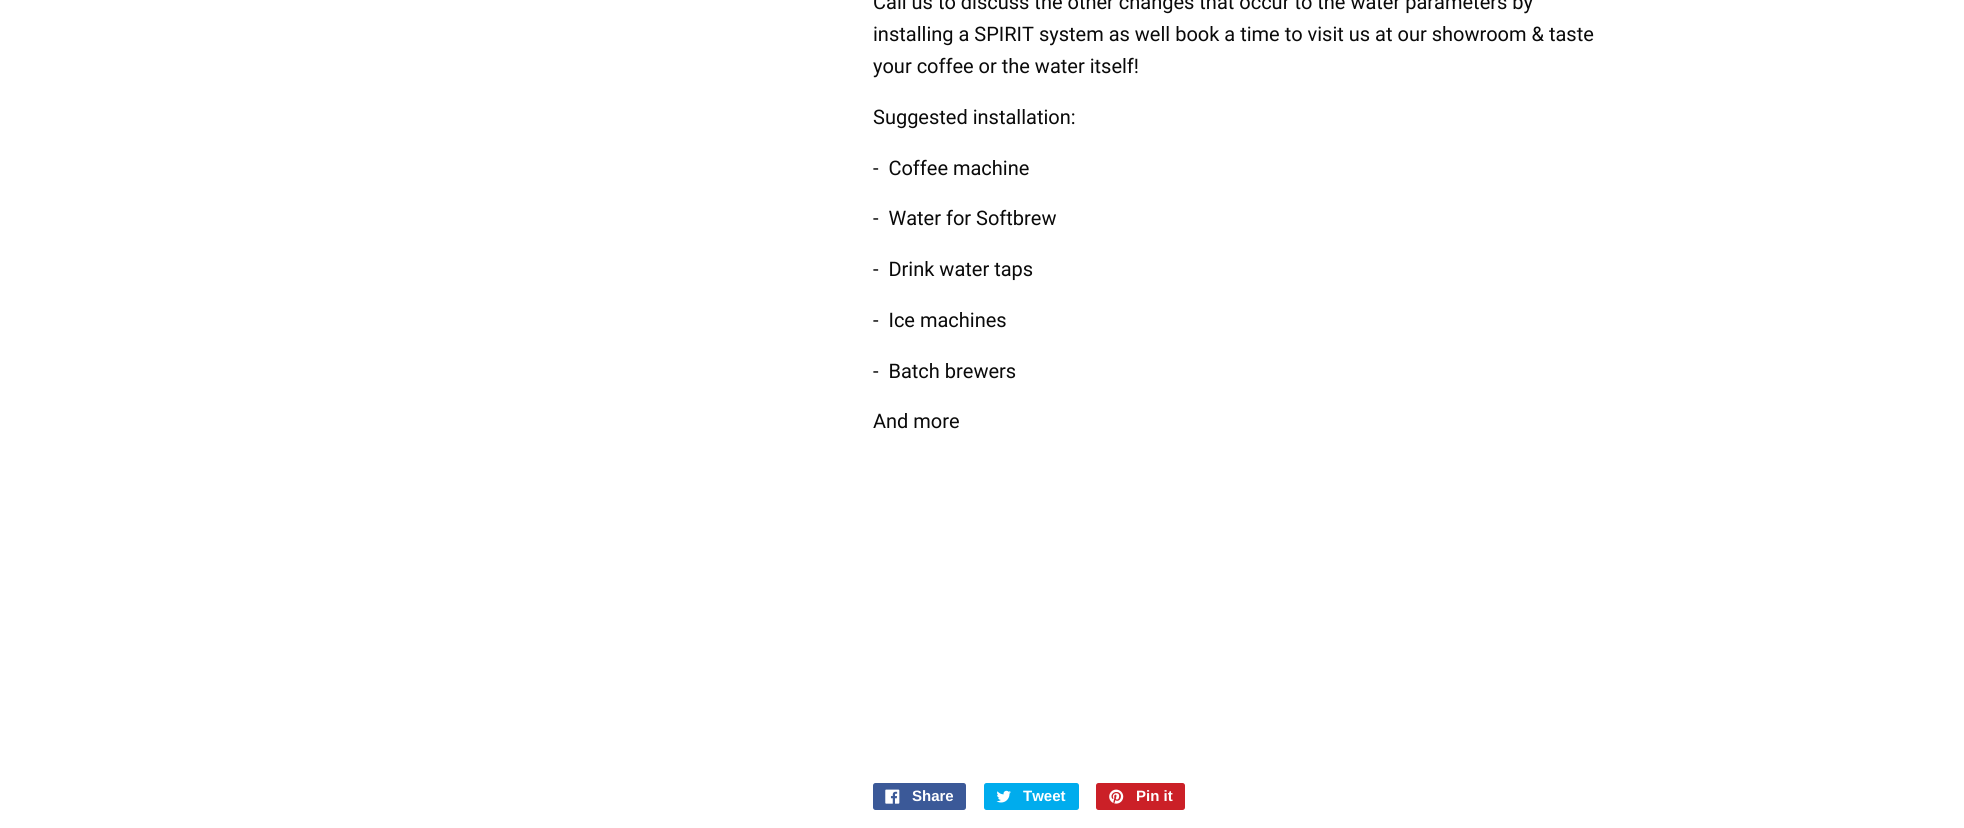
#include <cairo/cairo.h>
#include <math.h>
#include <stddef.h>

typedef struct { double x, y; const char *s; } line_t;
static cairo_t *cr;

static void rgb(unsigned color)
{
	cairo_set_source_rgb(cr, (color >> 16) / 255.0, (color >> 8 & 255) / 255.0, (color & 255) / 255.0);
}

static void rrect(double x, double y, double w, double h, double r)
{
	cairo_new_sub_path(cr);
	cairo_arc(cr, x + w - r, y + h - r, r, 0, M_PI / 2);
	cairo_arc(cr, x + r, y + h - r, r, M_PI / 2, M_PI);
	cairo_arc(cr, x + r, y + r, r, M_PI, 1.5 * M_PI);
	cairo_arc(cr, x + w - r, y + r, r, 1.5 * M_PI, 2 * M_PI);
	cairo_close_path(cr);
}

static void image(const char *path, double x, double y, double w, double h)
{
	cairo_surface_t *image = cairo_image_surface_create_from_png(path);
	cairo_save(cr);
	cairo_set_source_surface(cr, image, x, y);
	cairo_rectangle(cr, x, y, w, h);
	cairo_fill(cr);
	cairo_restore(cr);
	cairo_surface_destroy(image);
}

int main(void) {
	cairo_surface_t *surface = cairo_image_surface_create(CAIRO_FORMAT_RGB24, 1964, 828);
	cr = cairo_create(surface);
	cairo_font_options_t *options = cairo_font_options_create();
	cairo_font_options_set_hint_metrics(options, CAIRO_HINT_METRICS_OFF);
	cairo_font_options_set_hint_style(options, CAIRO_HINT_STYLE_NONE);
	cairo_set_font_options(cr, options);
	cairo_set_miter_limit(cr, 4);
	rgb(0xffffff);
	cairo_paint(cr);
	rgb(0x3b5998);
	rrect(873, 783, 93, 27, 2.5);
	cairo_fill(cr);
	image("img/1.png", 885, 789, 15, 15);
	rgb(0x00aced);
	rrect(984, 783, 95, 27, 2.5);
	cairo_fill(cr);
	image("img/2.png", 996, 790, 15, 13);
	rgb(0xcb2027);
	rrect(1096, 783, 89, 27, 2.5);
	cairo_fill(cr);
	image("img/3.png", 1109, 789, 15, 15);
	cairo_select_font_face(cr, "Roboto", CAIRO_FONT_SLANT_NORMAL, CAIRO_FONT_WEIGHT_NORMAL);
	cairo_set_font_size(cr, 20);
	rgb(0x0a0a0a);
	{
		static const line_t items[] = {
			{873, 9, "Call us to discuss the other changes that occur to the water parameters by"},
			{873, 41, "installing a SPIRIT system as well book a time to visit us at our showroom & taste"},
			{873, 73, "your coffee or the water itself!"},
			{873, 124, "Suggested installation:"},
			{873, 175, "-  Coffee machine"},
			{873, 225, "-  Water for Softbrew"},
			{873, 276, "-  Drink water taps"},
			{873, 327, "-  Ice machines"},
			{873, 378, "-  Batch brewers"},
			{873, 428, "And more"},
		};
		for (size_t i = 0; i < sizeof items / sizeof *items; i++) {
			cairo_move_to(cr, items[i].x, items[i].y);
			cairo_show_text(cr, items[i].s);
		}
	}
	cairo_select_font_face(cr, "Liberation Sans", CAIRO_FONT_SLANT_NORMAL, CAIRO_FONT_WEIGHT_BOLD);
	cairo_set_font_size(cr, 15);
	rgb(0xffffff);
	{
		static const line_t items[] = {
			{912, 801, "Share"},
			{1023, 801, "Tweet"},
			{1136, 801, "Pin it"},
		};
		for (size_t i = 0; i < sizeof items / sizeof *items; i++) {
			cairo_move_to(cr, items[i].x, items[i].y);
			cairo_show_text(cr, items[i].s);
		}
	}
	cairo_surface_write_to_png(surface, "page.png");
	cairo_font_options_destroy(options);
	cairo_destroy(cr);
	cairo_surface_destroy(surface);
	return 0;
}
